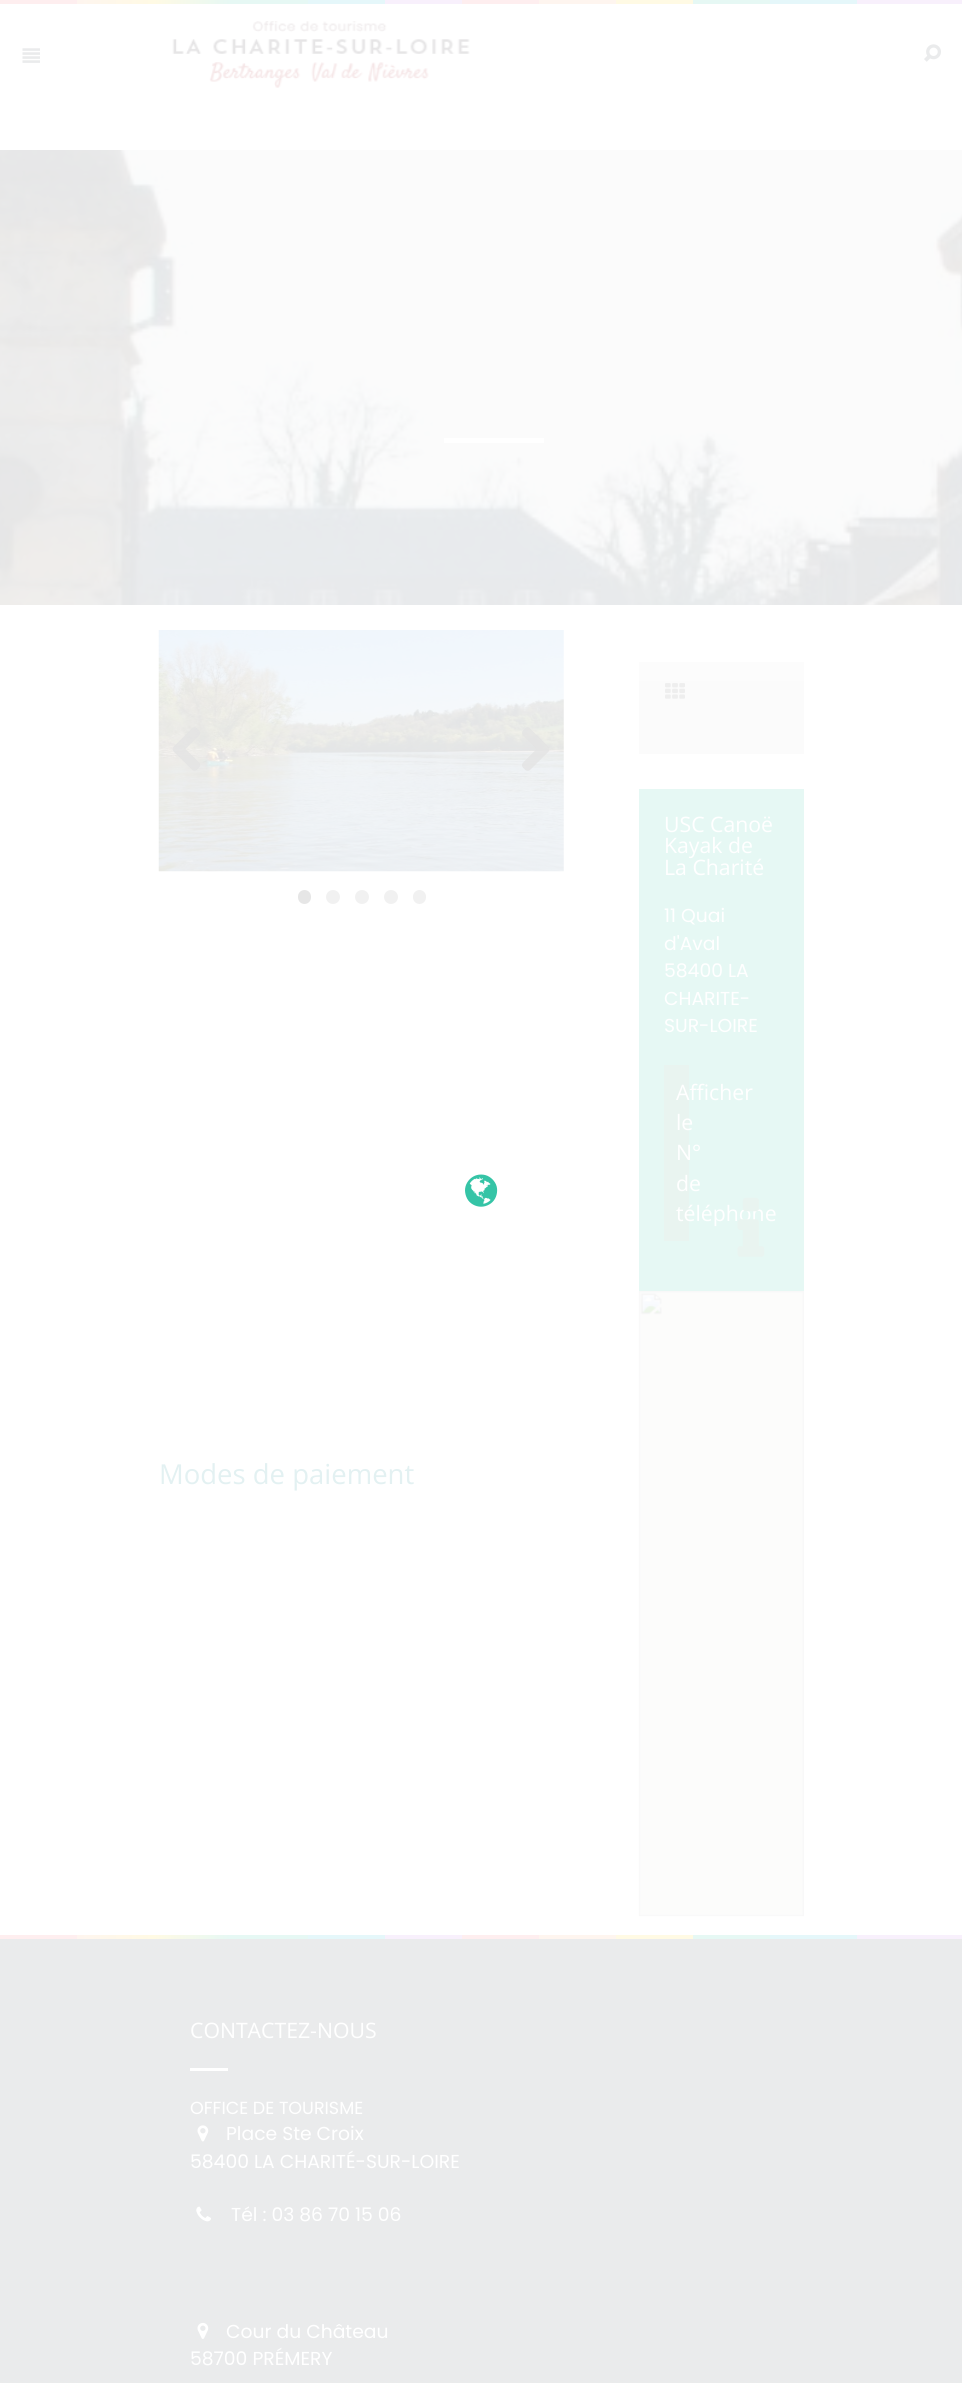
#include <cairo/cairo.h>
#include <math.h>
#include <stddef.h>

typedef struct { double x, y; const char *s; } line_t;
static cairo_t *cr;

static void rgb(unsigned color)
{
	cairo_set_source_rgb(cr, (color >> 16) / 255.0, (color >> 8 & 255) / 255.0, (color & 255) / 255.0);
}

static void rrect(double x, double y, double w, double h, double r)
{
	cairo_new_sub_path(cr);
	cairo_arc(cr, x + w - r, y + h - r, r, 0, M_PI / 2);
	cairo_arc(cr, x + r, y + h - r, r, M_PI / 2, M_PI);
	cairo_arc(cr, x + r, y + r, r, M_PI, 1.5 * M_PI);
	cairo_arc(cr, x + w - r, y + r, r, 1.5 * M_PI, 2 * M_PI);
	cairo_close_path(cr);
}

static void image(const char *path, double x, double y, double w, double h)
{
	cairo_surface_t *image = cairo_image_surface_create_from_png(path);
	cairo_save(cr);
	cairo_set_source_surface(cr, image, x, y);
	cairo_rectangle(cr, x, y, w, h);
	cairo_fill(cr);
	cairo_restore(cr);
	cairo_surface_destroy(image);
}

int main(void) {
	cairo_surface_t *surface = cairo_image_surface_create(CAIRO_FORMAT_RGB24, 962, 2383);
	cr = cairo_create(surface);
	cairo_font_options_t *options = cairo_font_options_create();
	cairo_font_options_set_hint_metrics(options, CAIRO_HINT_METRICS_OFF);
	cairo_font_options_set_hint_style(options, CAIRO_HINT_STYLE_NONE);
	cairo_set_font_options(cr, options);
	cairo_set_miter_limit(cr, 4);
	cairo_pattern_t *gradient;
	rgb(0xffffff);
	cairo_paint(cr);
	gradient = cairo_pattern_create_linear(0, 1.9, 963, 1.9);
	cairo_pattern_add_color_stop_rgba(gradient, 0, 0.996, 0.933, 0.937, 1);
	cairo_pattern_add_color_stop_rgba(gradient, 0.08, 0.996, 0.933, 0.937, 1);
	cairo_pattern_add_color_stop_rgba(gradient, 0.08, 0.996, 0.961, 0.937, 1);
	cairo_pattern_add_color_stop_rgba(gradient, 0.16, 1, 0.98, 0.894, 1);
	cairo_pattern_add_color_stop_rgba(gradient, 0.24, 0.902, 0.973, 0.957, 1);
	cairo_pattern_add_color_stop_rgba(gradient, 0.32, 0.902, 0.973, 0.957, 1);
	cairo_pattern_add_color_stop_rgba(gradient, 0.32, 0.898, 0.969, 0.98, 1);
	cairo_pattern_add_color_stop_rgba(gradient, 0.4, 0.898, 0.969, 0.98, 1);
	cairo_pattern_add_color_stop_rgba(gradient, 0.4, 0.973, 0.941, 0.988, 1);
	cairo_pattern_add_color_stop_rgba(gradient, 0.48, 0.973, 0.941, 0.988, 1);
	cairo_pattern_add_color_stop_rgba(gradient, 0.48, 0.996, 0.933, 0.937, 1);
	cairo_pattern_add_color_stop_rgba(gradient, 0.56, 0.996, 0.933, 0.937, 1);
	cairo_pattern_add_color_stop_rgba(gradient, 0.56, 0.996, 0.961, 0.937, 1);
	cairo_pattern_add_color_stop_rgba(gradient, 0.64, 0.996, 0.961, 0.937, 1);
	cairo_pattern_add_color_stop_rgba(gradient, 0.64, 1, 0.98, 0.894, 1);
	cairo_pattern_add_color_stop_rgba(gradient, 0.72, 1, 0.98, 0.894, 1);
	cairo_pattern_add_color_stop_rgba(gradient, 0.72, 0.902, 0.973, 0.957, 1);
	cairo_pattern_add_color_stop_rgba(gradient, 0.8, 0.902, 0.973, 0.957, 1);
	cairo_pattern_add_color_stop_rgba(gradient, 0.8, 0.898, 0.969, 0.98, 1);
	cairo_pattern_add_color_stop_rgba(gradient, 0.89, 0.898, 0.969, 0.98, 1);
	cairo_pattern_add_color_stop_rgba(gradient, 0.89, 0.973, 0.941, 0.988, 1);
	cairo_pattern_add_color_stop_rgba(gradient, 1, 0.973, 0.941, 0.988, 1);
	cairo_set_source(cr, gradient);
	cairo_pattern_destroy(gradient);
	cairo_rectangle(cr, 0, 0, 962, 4);
	cairo_fill(cr);
	image("img/1.png", 22, 48, 18, 15);
	image("img/2.png", 172, 21, 298, 67);
	image("img/3.png", 924, 44, 17, 18);
	image("img/4.png", 0, 150, 962, 455);
	rgb(0xffffff);
	cairo_rectangle(cr, 444, 438, 100, 5);
	cairo_fill(cr);
	gradient = cairo_pattern_create_linear(803, 631, 803, 754);
	cairo_pattern_add_color_stop_rgba(gradient, 0, 0.996, 0.996, 0.996, 1);
	cairo_pattern_add_color_stop_rgba(gradient, 0.5, 0.984, 0.984, 0.984, 1);
	cairo_pattern_add_color_stop_rgba(gradient, 1, 0.984, 0.984, 0.984, 1);
	cairo_set_source(cr, gradient);
	cairo_pattern_destroy(gradient);
	cairo_rectangle(cr, 639, 662, 165, 92);
	cairo_fill(cr);
	image("img/5.png", 665, 683, 20, 16);
	rgb(0xe6f8f4);
	cairo_rectangle(cr, 639, 789, 165, 502);
	cairo_fill(cr);
	rgb(0xe9f4f0);
	cairo_rectangle(cr, 664, 1065, 25, 176);
	cairo_fill(cr);
	image("img/7.png", 638, 1291, 166, 626);
	image("img/8.png", 158, 630, 406, 242);
	image("img/9.png", 172, 727, 29, 44);
	image("img/10.png", 522, 727, 28, 44);
	rgb(0xe6e6e6);
	rrect(298, 890, 13, 14, 6.5);
	cairo_fill(cr);
	rgb(0xf1f1f1);
	cairo_arc(cr, 333, 897, 7, 0, 2 * M_PI);
	cairo_fill(cr);
	cairo_arc(cr, 362, 897, 7, 0, 2 * M_PI);
	cairo_fill(cr);
	cairo_arc(cr, 391, 897, 7, 0, 2 * M_PI);
	cairo_fill(cr);
	rrect(413, 890, 13, 14, 6.5);
	cairo_fill(cr);
	gradient = cairo_pattern_create_linear(0, 1937, 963, 1937);
	cairo_pattern_add_color_stop_rgba(gradient, 0, 0.996, 0.933, 0.937, 1);
	cairo_pattern_add_color_stop_rgba(gradient, 0.08, 0.996, 0.933, 0.937, 1);
	cairo_pattern_add_color_stop_rgba(gradient, 0.08, 0.996, 0.961, 0.937, 1);
	cairo_pattern_add_color_stop_rgba(gradient, 0.16, 1, 0.98, 0.894, 1);
	cairo_pattern_add_color_stop_rgba(gradient, 0.24, 0.902, 0.973, 0.957, 1);
	cairo_pattern_add_color_stop_rgba(gradient, 0.32, 0.902, 0.973, 0.957, 1);
	cairo_pattern_add_color_stop_rgba(gradient, 0.32, 0.898, 0.969, 0.98, 1);
	cairo_pattern_add_color_stop_rgba(gradient, 0.4, 0.898, 0.969, 0.98, 1);
	cairo_pattern_add_color_stop_rgba(gradient, 0.4, 0.973, 0.941, 0.988, 1);
	cairo_pattern_add_color_stop_rgba(gradient, 0.48, 0.973, 0.941, 0.988, 1);
	cairo_pattern_add_color_stop_rgba(gradient, 0.48, 0.996, 0.933, 0.937, 1);
	cairo_pattern_add_color_stop_rgba(gradient, 0.56, 0.996, 0.933, 0.937, 1);
	cairo_pattern_add_color_stop_rgba(gradient, 0.56, 0.996, 0.961, 0.937, 1);
	cairo_pattern_add_color_stop_rgba(gradient, 0.64, 0.996, 0.961, 0.937, 1);
	cairo_pattern_add_color_stop_rgba(gradient, 0.64, 1, 0.98, 0.894, 1);
	cairo_pattern_add_color_stop_rgba(gradient, 0.72, 1, 0.98, 0.894, 1);
	cairo_pattern_add_color_stop_rgba(gradient, 0.72, 0.902, 0.973, 0.957, 1);
	cairo_pattern_add_color_stop_rgba(gradient, 0.8, 0.902, 0.973, 0.957, 1);
	cairo_pattern_add_color_stop_rgba(gradient, 0.8, 0.898, 0.969, 0.98, 1);
	cairo_pattern_add_color_stop_rgba(gradient, 0.89, 0.898, 0.969, 0.98, 1);
	cairo_pattern_add_color_stop_rgba(gradient, 0.89, 0.973, 0.941, 0.988, 1);
	cairo_pattern_add_color_stop_rgba(gradient, 1, 0.973, 0.941, 0.988, 1);
	cairo_set_source(cr, gradient);
	cairo_pattern_destroy(gradient);
	cairo_rectangle(cr, 0, 1935, 962, 4);
	cairo_fill(cr);
	rgb(0xeaebec);
	cairo_rectangle(cr, 0, 1939, 962, 444);
	cairo_fill(cr);
	rgb(0xffffff);
	cairo_rectangle(cr, 190, 2068, 38, 3);
	cairo_fill(cr);
	image("img/11.png", 197, 2125, 12, 17);
	image("img/12.png", 196, 2206, 15, 16);
	image("img/13.png", 197, 2322, 12, 17);
	image("img/14.png", 465, 1174, 33, 33);
	cairo_select_font_face(cr, "Open Sans", CAIRO_FONT_SLANT_NORMAL, CAIRO_FONT_WEIGHT_NORMAL);
	cairo_set_font_size(cr, 21.25);
	{
		static const line_t items[] = {
			{664, 832, "USC Canoë"},
			{664, 853, "Kayak de"},
			{664, 875, "La Charité"},
		};
		for (size_t i = 0; i < sizeof items / sizeof *items; i++) {
			cairo_move_to(cr, items[i].x, items[i].y);
			cairo_show_text(cr, items[i].s);
		}
	}
	cairo_select_font_face(cr, "Poppins", CAIRO_FONT_SLANT_NORMAL, CAIRO_FONT_WEIGHT_NORMAL);
	cairo_set_font_size(cr, 18.75);
	{
		static const line_t items[] = {
			{664, 922, "11 Quai"},
			{664, 950, "d'Aval"},
			{664, 977, "58400 LA"},
			{664, 1005, "CHARITE-"},
			{664, 1032, "SUR-LOIRE"},
		};
		for (size_t i = 0; i < sizeof items / sizeof *items; i++) {
			cairo_move_to(cr, items[i].x, items[i].y);
			cairo_show_text(cr, items[i].s);
		}
	}
	cairo_select_font_face(cr, "Open Sans", CAIRO_FONT_SLANT_NORMAL, CAIRO_FONT_WEIGHT_NORMAL);
	cairo_set_font_size(cr, 21.25);
	{
		static const line_t items[] = {
			{676, 1100, "Afficher"},
			{676, 1130, "le"},
			{676, 1160, "N°"},
			{676, 1191, "de"},
			{676, 1221, "téléphone"},
		};
		for (size_t i = 0; i < sizeof items / sizeof *items; i++) {
			cairo_move_to(cr, items[i].x, items[i].y);
			cairo_show_text(cr, items[i].s);
		}
	}
	image("img/6.png", 737, 1197, 28, 60);
	cairo_set_font_size(cr, 27.5);
	rgb(0xe3f1f2);
	cairo_move_to(cr, 159, 1484);
	cairo_show_text(cr, "Modes de paiement");
	cairo_set_font_size(cr, 21.25);
	rgb(0xffffff);
	cairo_move_to(cr, 190, 2038);
	cairo_show_text(cr, "CONTACTEZ-NOUS");
	cairo_select_font_face(cr, "Poppins", CAIRO_FONT_SLANT_NORMAL, CAIRO_FONT_WEIGHT_NORMAL);
	cairo_set_font_size(cr, 17.5);
	cairo_move_to(cr, 190, 2114);
	cairo_show_text(cr, "OFFICE DE TOURISME");
	cairo_set_font_size(cr, 18.75);
	{
		static const line_t items[] = {
			{226, 2140, "Place Ste Croix"},
			{190, 2168, "58400 LA CHARITÉ-SUR-LOIRE"},
			{231, 2221, "Tél : 03 86 70 15 06"},
			{226, 2338, "Cour du Château"},
			{190, 2365, "58700 PRÉMERY"},
		};
		for (size_t i = 0; i < sizeof items / sizeof *items; i++) {
			cairo_move_to(cr, items[i].x, items[i].y);
			cairo_show_text(cr, items[i].s);
		}
	}
	cairo_surface_write_to_png(surface, "page.png");
	cairo_font_options_destroy(options);
	cairo_destroy(cr);
	cairo_surface_destroy(surface);
	return 0;
}
